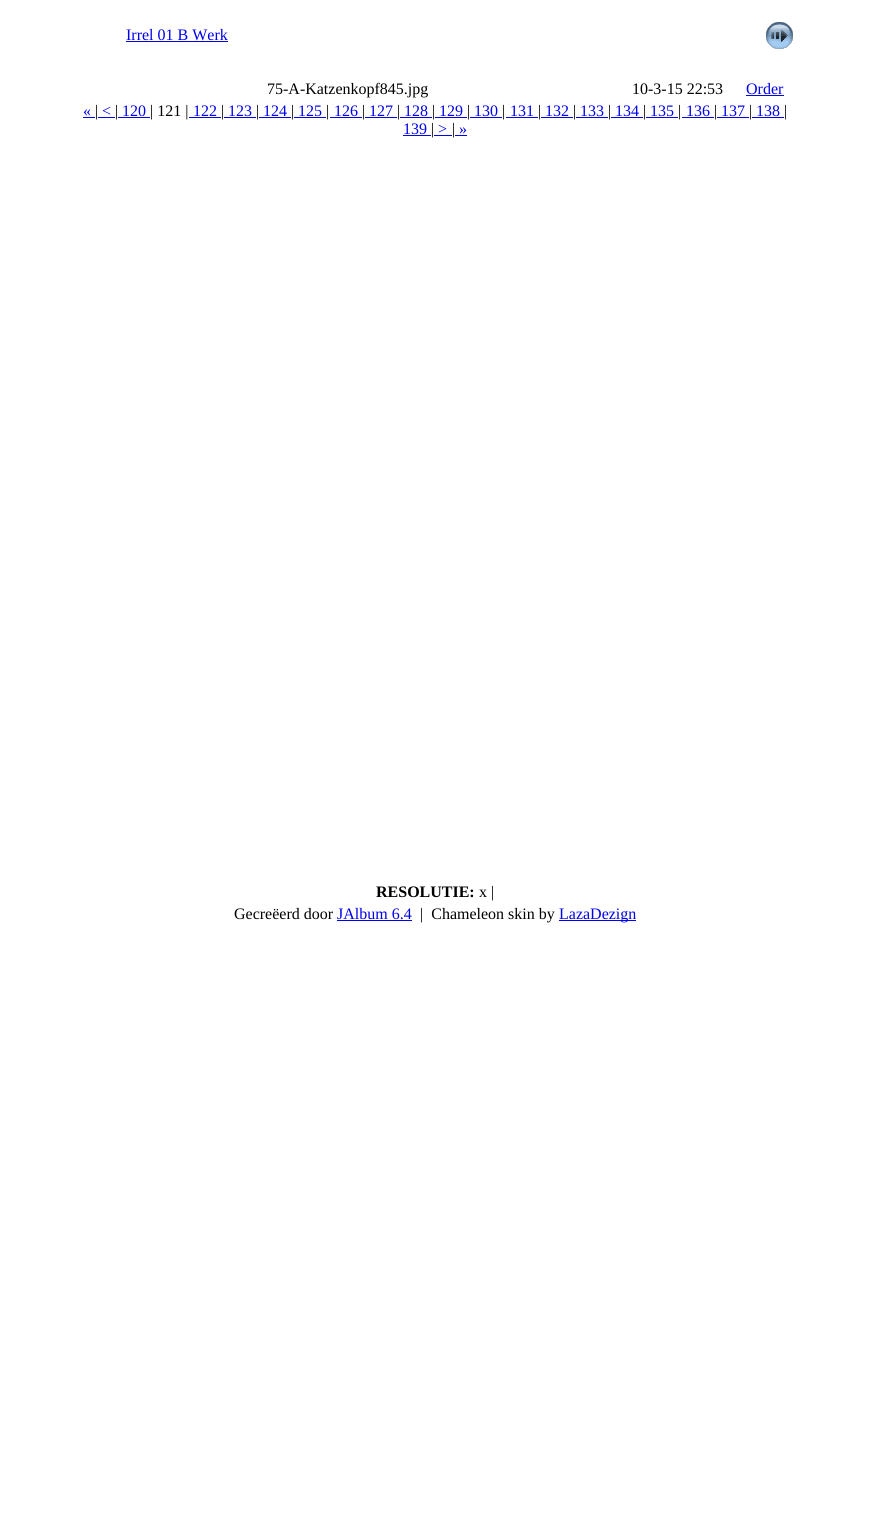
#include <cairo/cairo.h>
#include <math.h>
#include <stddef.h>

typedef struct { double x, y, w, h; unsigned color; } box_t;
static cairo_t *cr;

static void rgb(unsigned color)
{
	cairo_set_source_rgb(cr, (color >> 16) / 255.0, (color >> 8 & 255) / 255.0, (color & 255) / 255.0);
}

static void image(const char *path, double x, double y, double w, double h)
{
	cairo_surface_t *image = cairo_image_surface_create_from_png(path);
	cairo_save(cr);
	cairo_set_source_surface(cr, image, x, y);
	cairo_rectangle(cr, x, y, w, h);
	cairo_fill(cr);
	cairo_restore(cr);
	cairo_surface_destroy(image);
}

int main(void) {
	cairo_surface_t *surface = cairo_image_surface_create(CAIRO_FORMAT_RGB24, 870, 1540);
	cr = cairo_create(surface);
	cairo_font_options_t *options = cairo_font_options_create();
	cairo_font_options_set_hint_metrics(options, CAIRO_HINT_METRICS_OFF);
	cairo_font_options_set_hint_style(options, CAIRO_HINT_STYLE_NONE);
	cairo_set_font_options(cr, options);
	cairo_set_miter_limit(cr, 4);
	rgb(0xffffff);
	cairo_paint(cr);
	rgb(0x0000ee);
	cairo_rectangle(cr, 126, 41, 102, 1);
	cairo_fill(cr);
	image("img/1.png", 766, 22, 27, 27);
	{
		static const box_t items[] = {
			{746, 95, 38, 1, 0x0000ee},
			{83, 117, 12, 1, 0x0000ee},
			{98, 117, 17, 1, 0x0000ee},
			{118, 117, 32, 1, 0x0000ee},
			{189, 117, 32, 1, 0x0000ee},
			{224, 117, 32, 1, 0x0000ee},
			{259, 117, 32, 1, 0x0000ee},
			{294, 117, 32, 1, 0x0000ee},
			{330, 117, 32, 1, 0x0000ee},
			{365, 117, 32, 1, 0x0000ee},
			{400, 117, 32, 1, 0x0000ee},
			{435, 117, 32, 1, 0x0000ee},
			{470, 117, 32, 1, 0x0000ee},
			{506, 117, 32, 1, 0x0000ee},
			{541, 117, 32, 1, 0x0000ee},
			{576, 117, 32, 1, 0x0000ee},
			{611, 117, 32, 1, 0x0000ee},
			{646, 117, 32, 1, 0x0000ee},
			{682, 117, 32, 1, 0x0000ee},
			{717, 117, 32, 1, 0x0000ee},
			{752, 117, 32, 1, 0x0000ee},
			{403, 135, 28, 1, 0x0000ee},
			{434, 135, 18, 1, 0x0000ee},
			{455, 135, 12, 1, 0x0000ee},
			{337, 920, 75, 1, 0x0000ee},
			{559, 920, 77, 1, 0x0000ee},
		};
		for (size_t i = 0; i < sizeof items / sizeof *items; i++) {
			rgb(items[i].color);
			cairo_rectangle(cr, items[i].x, items[i].y, items[i].w, items[i].h);
			cairo_fill(cr);
		}
	}
	cairo_select_font_face(cr, "Liberation Serif", CAIRO_FONT_SLANT_NORMAL, CAIRO_FONT_WEIGHT_NORMAL);
	cairo_set_font_size(cr, 16);
	cairo_move_to(cr, 126, 40);
	cairo_show_text(cr, "Irrel 01 B Werk");
	rgb(0x000000);
	cairo_move_to(cr, 267, 94);
	cairo_show_text(cr, "75-A-Katzenkopf845.jpg");
	cairo_move_to(cr, 632, 94);
	cairo_show_text(cr, "10-3-15 22:53");
	rgb(0x0000ee);
	cairo_move_to(cr, 746, 94);
	cairo_show_text(cr, "Order");
	cairo_move_to(cr, 83, 116);
	cairo_show_text(cr, "«");
	rgb(0x000000);
	cairo_move_to(cr, 95, 116);
	cairo_show_text(cr, "|");
	rgb(0x0000ee);
	cairo_move_to(cr, 102, 116);
	cairo_show_text(cr, "<");
	rgb(0x000000);
	cairo_move_to(cr, 115, 116);
	cairo_show_text(cr, "|");
	rgb(0x0000ee);
	cairo_move_to(cr, 122, 116);
	cairo_show_text(cr, "120");
	rgb(0x000000);
	cairo_move_to(cr, 150, 116);
	cairo_show_text(cr, "| 121 |");
	rgb(0x0000ee);
	cairo_move_to(cr, 193, 116);
	cairo_show_text(cr, "122");
	rgb(0x000000);
	cairo_move_to(cr, 221, 116);
	cairo_show_text(cr, "|");
	rgb(0x0000ee);
	cairo_move_to(cr, 228, 116);
	cairo_show_text(cr, "123");
	rgb(0x000000);
	cairo_move_to(cr, 256, 116);
	cairo_show_text(cr, "|");
	rgb(0x0000ee);
	cairo_move_to(cr, 263, 116);
	cairo_show_text(cr, "124");
	rgb(0x000000);
	cairo_move_to(cr, 291, 116);
	cairo_show_text(cr, "|");
	rgb(0x0000ee);
	cairo_move_to(cr, 298, 116);
	cairo_show_text(cr, "125");
	rgb(0x000000);
	cairo_move_to(cr, 326, 116);
	cairo_show_text(cr, "|");
	rgb(0x0000ee);
	cairo_move_to(cr, 334, 116);
	cairo_show_text(cr, "126");
	rgb(0x000000);
	cairo_move_to(cr, 362, 116);
	cairo_show_text(cr, "|");
	rgb(0x0000ee);
	cairo_move_to(cr, 369, 116);
	cairo_show_text(cr, "127");
	rgb(0x000000);
	cairo_move_to(cr, 397, 116);
	cairo_show_text(cr, "|");
	rgb(0x0000ee);
	cairo_move_to(cr, 404, 116);
	cairo_show_text(cr, "128");
	rgb(0x000000);
	cairo_move_to(cr, 432, 116);
	cairo_show_text(cr, "|");
	rgb(0x0000ee);
	cairo_move_to(cr, 439, 116);
	cairo_show_text(cr, "129");
	rgb(0x000000);
	cairo_move_to(cr, 467, 116);
	cairo_show_text(cr, "|");
	rgb(0x0000ee);
	cairo_move_to(cr, 474, 116);
	cairo_show_text(cr, "130");
	rgb(0x000000);
	cairo_move_to(cr, 502, 116);
	cairo_show_text(cr, "|");
	rgb(0x0000ee);
	cairo_move_to(cr, 510, 116);
	cairo_show_text(cr, "131");
	rgb(0x000000);
	cairo_move_to(cr, 538, 116);
	cairo_show_text(cr, "|");
	rgb(0x0000ee);
	cairo_move_to(cr, 545, 116);
	cairo_show_text(cr, "132");
	rgb(0x000000);
	cairo_move_to(cr, 573, 116);
	cairo_show_text(cr, "|");
	rgb(0x0000ee);
	cairo_move_to(cr, 580, 116);
	cairo_show_text(cr, "133");
	rgb(0x000000);
	cairo_move_to(cr, 608, 116);
	cairo_show_text(cr, "|");
	rgb(0x0000ee);
	cairo_move_to(cr, 615, 116);
	cairo_show_text(cr, "134");
	rgb(0x000000);
	cairo_move_to(cr, 643, 116);
	cairo_show_text(cr, "|");
	rgb(0x0000ee);
	cairo_move_to(cr, 650, 116);
	cairo_show_text(cr, "135");
	rgb(0x000000);
	cairo_move_to(cr, 678, 116);
	cairo_show_text(cr, "|");
	rgb(0x0000ee);
	cairo_move_to(cr, 686, 116);
	cairo_show_text(cr, "136");
	rgb(0x000000);
	cairo_move_to(cr, 714, 116);
	cairo_show_text(cr, "|");
	rgb(0x0000ee);
	cairo_move_to(cr, 721, 116);
	cairo_show_text(cr, "137");
	rgb(0x000000);
	cairo_move_to(cr, 749, 116);
	cairo_show_text(cr, "|");
	rgb(0x0000ee);
	cairo_move_to(cr, 756, 116);
	cairo_show_text(cr, "138");
	rgb(0x000000);
	cairo_move_to(cr, 784, 116);
	cairo_show_text(cr, "|");
	rgb(0x0000ee);
	cairo_move_to(cr, 403, 134);
	cairo_show_text(cr, "139");
	rgb(0x000000);
	cairo_move_to(cr, 431, 134);
	cairo_show_text(cr, "|");
	rgb(0x0000ee);
	cairo_move_to(cr, 438, 134);
	cairo_show_text(cr, ">");
	rgb(0x000000);
	cairo_move_to(cr, 452, 134);
	cairo_show_text(cr, "|");
	rgb(0x0000ee);
	cairo_move_to(cr, 459, 134);
	cairo_show_text(cr, "»");
	cairo_select_font_face(cr, "Liberation Serif", CAIRO_FONT_SLANT_NORMAL, CAIRO_FONT_WEIGHT_BOLD);
	rgb(0x000000);
	cairo_move_to(cr, 376, 897);
	cairo_show_text(cr, "RESOLUTIE:");
	cairo_select_font_face(cr, "Liberation Serif", CAIRO_FONT_SLANT_NORMAL, CAIRO_FONT_WEIGHT_NORMAL);
	cairo_move_to(cr, 479, 897);
	cairo_show_text(cr, "x |");
	cairo_move_to(cr, 234, 919);
	cairo_show_text(cr, "Gecreëerd door");
	rgb(0x0000ee);
	cairo_move_to(cr, 337, 919);
	cairo_show_text(cr, "JAlbum 6.4");
	rgb(0x000000);
	cairo_move_to(cr, 420, 919);
	cairo_show_text(cr, "|  Chameleon skin by");
	rgb(0x0000ee);
	cairo_move_to(cr, 559, 919);
	cairo_show_text(cr, "LazaDezign");
	cairo_surface_write_to_png(surface, "page.png");
	cairo_font_options_destroy(options);
	cairo_destroy(cr);
	cairo_surface_destroy(surface);
	return 0;
}
